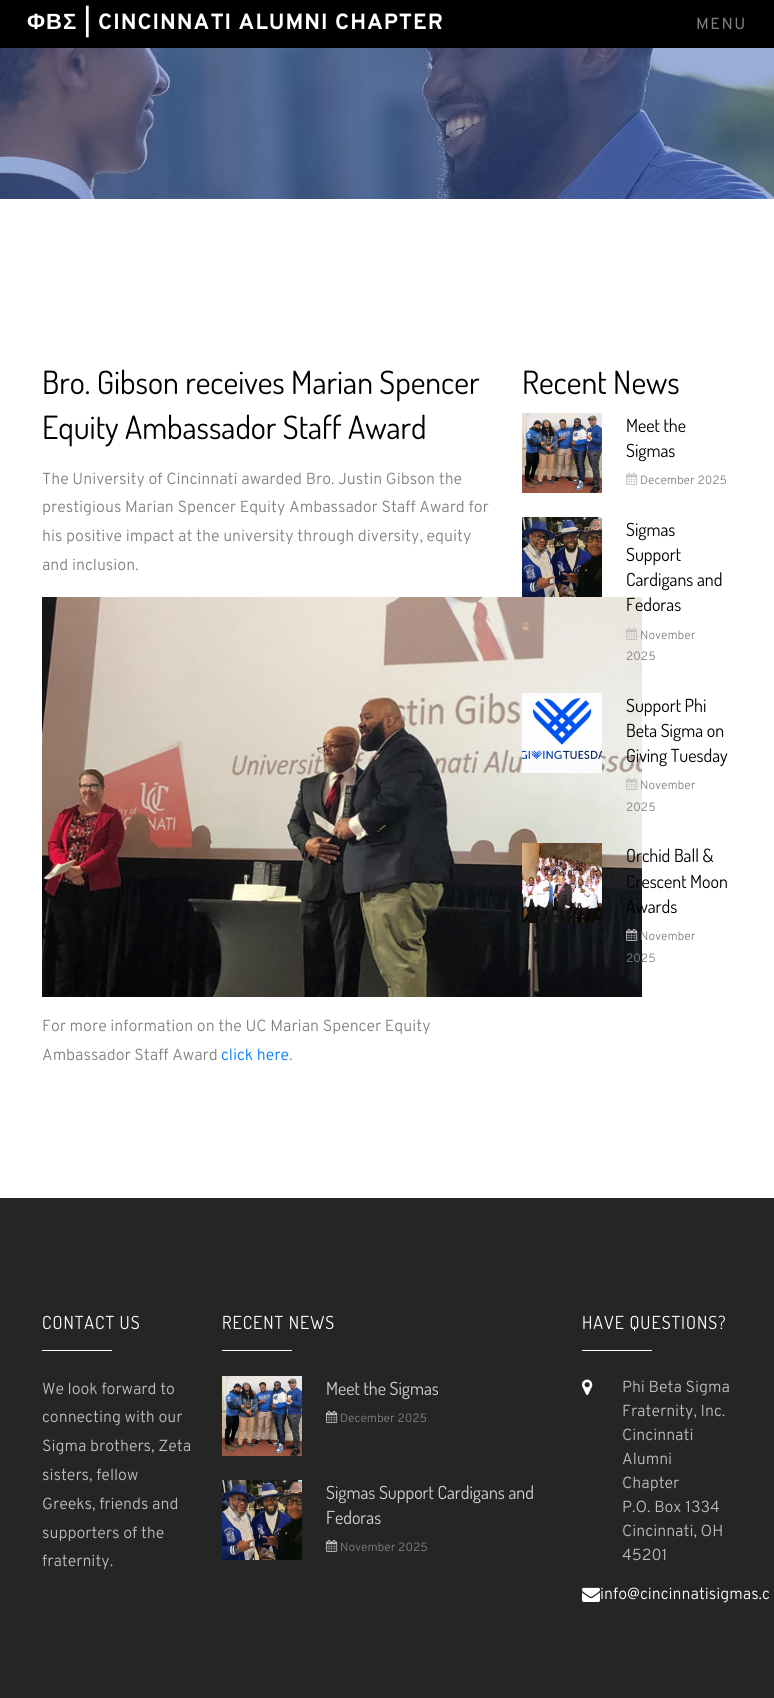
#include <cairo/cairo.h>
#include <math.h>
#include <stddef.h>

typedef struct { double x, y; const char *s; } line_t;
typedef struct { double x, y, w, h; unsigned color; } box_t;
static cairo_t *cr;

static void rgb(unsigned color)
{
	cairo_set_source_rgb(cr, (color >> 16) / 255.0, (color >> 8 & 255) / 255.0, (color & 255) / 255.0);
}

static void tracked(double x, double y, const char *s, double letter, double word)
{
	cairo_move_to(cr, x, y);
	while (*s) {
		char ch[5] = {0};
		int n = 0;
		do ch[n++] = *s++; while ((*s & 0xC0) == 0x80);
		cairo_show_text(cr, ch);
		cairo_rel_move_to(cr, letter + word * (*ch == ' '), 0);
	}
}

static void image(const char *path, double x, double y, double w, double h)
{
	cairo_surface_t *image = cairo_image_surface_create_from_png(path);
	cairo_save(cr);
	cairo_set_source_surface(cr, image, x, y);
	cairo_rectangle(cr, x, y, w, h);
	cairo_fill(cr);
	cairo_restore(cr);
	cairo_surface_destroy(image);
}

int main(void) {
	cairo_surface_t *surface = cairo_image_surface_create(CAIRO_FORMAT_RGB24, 774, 1698);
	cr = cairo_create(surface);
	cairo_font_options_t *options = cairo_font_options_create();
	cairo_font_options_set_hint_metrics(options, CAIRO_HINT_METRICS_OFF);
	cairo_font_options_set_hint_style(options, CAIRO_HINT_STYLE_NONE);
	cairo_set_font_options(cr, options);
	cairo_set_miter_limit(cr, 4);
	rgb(0xffffff);
	cairo_paint(cr);
	rgb(0x000000);
	cairo_rectangle(cr, 0, 0, 774, 48);
	cairo_fill(cr);
	image("img/1.png", 0, 48, 774, 151);
	image("img/2.png", 42, 597, 600, 400);
	image("img/3.png", 522, 413, 80, 80);
	image("img/4.png", 626, 472, 12, 13);
	image("img/5.png", 522, 517, 80, 80);
	image("img/6.png", 626, 627, 12, 13);
	image("img/7.png", 522, 693, 80, 80);
	image("img/8.png", 626, 777, 12, 13);
	image("img/9.png", 522, 843, 80, 80);
	image("img/10.png", 626, 928, 12, 13);
	{
		static const box_t items[] = {
			{0, 1198, 774, 500, 0x252525},
			{42, 1350, 70, 1, 0xffffff},
			{222, 1350, 70, 1, 0xffffff},
		};
		for (size_t i = 0; i < sizeof items / sizeof *items; i++) {
			rgb(items[i].color);
			cairo_rectangle(cr, items[i].x, items[i].y, items[i].w, items[i].h);
			cairo_fill(cr);
		}
	}
	image("img/11.png", 222, 1376, 80, 80);
	image("img/12.png", 326, 1410, 12, 13);
	image("img/13.png", 222, 1480, 80, 80);
	image("img/12.png", 326, 1539, 12, 13);
	cairo_rectangle(cr, 582, 1350, 70, 1);
	cairo_fill(cr);
	image("img/14.png", 582, 1379, 11, 16);
	image("img/15.png", 582, 1587, 18, 15);
	cairo_select_font_face(cr, "Liberation Sans", CAIRO_FONT_SLANT_NORMAL, CAIRO_FONT_WEIGHT_BOLD);
	cairo_set_font_size(cr, 22);
	tracked(27, 29, "ΦΒΣ", 1, 0);
	cairo_select_font_face(cr, "Overpass", CAIRO_FONT_SLANT_NORMAL, CAIRO_FONT_WEIGHT_BOLD);
	tracked(84, 29, "| CINCINNATI ALUMNI CHAPTER", 1, 0);
	cairo_select_font_face(cr, "Overpass", CAIRO_FONT_SLANT_NORMAL, CAIRO_FONT_WEIGHT_NORMAL);
	cairo_set_font_size(cr, 16);
	rgb(0x808080);
	tracked(696, 29, "MENU", 1.5, 0);
	cairo_select_font_face(cr, "Dosis", CAIRO_FONT_SLANT_NORMAL, CAIRO_FONT_WEIGHT_NORMAL);
	cairo_set_font_size(cr, 32);
	rgb(0x000000);
	cairo_move_to(cr, 42, 394);
	cairo_show_text(cr, "Bro. Gibson receives Marian Spencer");
	cairo_move_to(cr, 42, 439);
	cairo_show_text(cr, "Equity Ambassador Staff Award");
	cairo_select_font_face(cr, "Overpass Light", CAIRO_FONT_SLANT_NORMAL, CAIRO_FONT_WEIGHT_NORMAL);
	cairo_set_font_size(cr, 16);
	rgb(0x808080);
	{
		static const line_t items[] = {
			{42, 484, "The University of Cincinnati awarded Bro. Justin Gibson the"},
			{42, 512, "prestigious Marian Spencer Equity Ambassador Staff Award for"},
			{42, 541, "his positive impact at the university through diversity, equity"},
			{42, 570, "and inclusion."},
			{42, 1031, "For more information on the UC Marian Spencer Equity"},
			{42, 1060, "Ambassador Staff Award"},
		};
		for (size_t i = 0; i < sizeof items / sizeof *items; i++) {
			cairo_move_to(cr, items[i].x, items[i].y);
			cairo_show_text(cr, items[i].s);
		}
	}
	rgb(0x007bff);
	cairo_move_to(cr, 221, 1060);
	cairo_show_text(cr, "click here");
	rgb(0x808080);
	cairo_move_to(cr, 289, 1060);
	cairo_show_text(cr, ".");
	cairo_select_font_face(cr, "Dosis", CAIRO_FONT_SLANT_NORMAL, CAIRO_FONT_WEIGHT_NORMAL);
	cairo_set_font_size(cr, 32);
	rgb(0x000000);
	cairo_move_to(cr, 522, 394);
	cairo_show_text(cr, "Recent News");
	cairo_set_font_size(cr, 18);
	cairo_move_to(cr, 626, 432);
	cairo_show_text(cr, "Meet the");
	cairo_move_to(cr, 626, 457);
	cairo_show_text(cr, "Sigmas");
	cairo_select_font_face(cr, "Overpass Light", CAIRO_FONT_SLANT_NORMAL, CAIRO_FONT_WEIGHT_NORMAL);
	cairo_set_font_size(cr, 12);
	rgb(0x808080);
	cairo_move_to(cr, 640, 484);
	cairo_show_text(cr, "December 2025");
	cairo_select_font_face(cr, "Dosis", CAIRO_FONT_SLANT_NORMAL, CAIRO_FONT_WEIGHT_NORMAL);
	cairo_set_font_size(cr, 18);
	rgb(0x000000);
	{
		static const line_t items[] = {
			{626, 536, "Sigmas"},
			{626, 561, "Support"},
			{626, 586, "Cardigans and"},
			{626, 611, "Fedoras"},
		};
		for (size_t i = 0; i < sizeof items / sizeof *items; i++) {
			cairo_move_to(cr, items[i].x, items[i].y);
			cairo_show_text(cr, items[i].s);
		}
	}
	cairo_select_font_face(cr, "Overpass Light", CAIRO_FONT_SLANT_NORMAL, CAIRO_FONT_WEIGHT_NORMAL);
	cairo_set_font_size(cr, 12);
	rgb(0x808080);
	cairo_move_to(cr, 640, 639);
	cairo_show_text(cr, "November");
	cairo_move_to(cr, 626, 660);
	cairo_show_text(cr, "2025");
	cairo_select_font_face(cr, "Dosis", CAIRO_FONT_SLANT_NORMAL, CAIRO_FONT_WEIGHT_NORMAL);
	cairo_set_font_size(cr, 18);
	rgb(0x000000);
	{
		static const line_t items[] = {
			{626, 712, "Support Phi"},
			{626, 737, "Beta Sigma on"},
			{626, 762, "Giving Tuesday"},
		};
		for (size_t i = 0; i < sizeof items / sizeof *items; i++) {
			cairo_move_to(cr, items[i].x, items[i].y);
			cairo_show_text(cr, items[i].s);
		}
	}
	cairo_select_font_face(cr, "Overpass Light", CAIRO_FONT_SLANT_NORMAL, CAIRO_FONT_WEIGHT_NORMAL);
	cairo_set_font_size(cr, 12);
	rgb(0x808080);
	cairo_move_to(cr, 640, 789);
	cairo_show_text(cr, "November");
	cairo_move_to(cr, 626, 811);
	cairo_show_text(cr, "2025");
	cairo_select_font_face(cr, "Dosis", CAIRO_FONT_SLANT_NORMAL, CAIRO_FONT_WEIGHT_NORMAL);
	cairo_set_font_size(cr, 18);
	rgb(0x000000);
	{
		static const line_t items[] = {
			{626, 862, "Orchid Ball &"},
			{626, 888, "Crescent Moon"},
			{626, 913, "Awards"},
		};
		for (size_t i = 0; i < sizeof items / sizeof *items; i++) {
			cairo_move_to(cr, items[i].x, items[i].y);
			cairo_show_text(cr, items[i].s);
		}
	}
	cairo_select_font_face(cr, "Overpass Light", CAIRO_FONT_SLANT_NORMAL, CAIRO_FONT_WEIGHT_NORMAL);
	cairo_set_font_size(cr, 12);
	rgb(0x808080);
	cairo_move_to(cr, 640, 940);
	cairo_show_text(cr, "November");
	cairo_move_to(cr, 626, 962);
	cairo_show_text(cr, "2025");
	cairo_select_font_face(cr, "Dosis", CAIRO_FONT_SLANT_NORMAL, CAIRO_FONT_WEIGHT_NORMAL);
	cairo_set_font_size(cr, 18);
	rgb(0xffffff);
	tracked(42, 1329, "CONTACT US", 1, 0);
	cairo_select_font_face(cr, "Overpass Light", CAIRO_FONT_SLANT_NORMAL, CAIRO_FONT_WEIGHT_NORMAL);
	cairo_set_font_size(cr, 16);
	rgb(0xbebebe);
	{
		static const line_t items[] = {
			{42, 1394, "We look forward to"},
			{42, 1422, "connecting with our"},
			{42, 1451, "Sigma brothers, Zeta"},
			{42, 1480, "sisters, fellow"},
			{42, 1509, "Greeks, friends and"},
			{42, 1538, "supporters of the"},
			{42, 1566, "fraternity."},
		};
		for (size_t i = 0; i < sizeof items / sizeof *items; i++) {
			cairo_move_to(cr, items[i].x, items[i].y);
			cairo_show_text(cr, items[i].s);
		}
	}
	cairo_select_font_face(cr, "Dosis", CAIRO_FONT_SLANT_NORMAL, CAIRO_FONT_WEIGHT_NORMAL);
	cairo_set_font_size(cr, 18);
	rgb(0xffffff);
	tracked(222, 1329, "RECENT NEWS", 1, 0);
	rgb(0xd3d3d3);
	cairo_move_to(cr, 326, 1395);
	cairo_show_text(cr, "Meet the Sigmas");
	cairo_select_font_face(cr, "Overpass Light", CAIRO_FONT_SLANT_NORMAL, CAIRO_FONT_WEIGHT_NORMAL);
	cairo_set_font_size(cr, 12);
	rgb(0x808080);
	cairo_move_to(cr, 340, 1422);
	cairo_show_text(cr, "December 2025");
	cairo_select_font_face(cr, "Dosis", CAIRO_FONT_SLANT_NORMAL, CAIRO_FONT_WEIGHT_NORMAL);
	cairo_set_font_size(cr, 18);
	rgb(0xd3d3d3);
	cairo_move_to(cr, 326, 1499);
	cairo_show_text(cr, "Sigmas Support Cardigans and");
	cairo_move_to(cr, 326, 1524);
	cairo_show_text(cr, "Fedoras");
	cairo_select_font_face(cr, "Overpass Light", CAIRO_FONT_SLANT_NORMAL, CAIRO_FONT_WEIGHT_NORMAL);
	cairo_set_font_size(cr, 12);
	rgb(0x808080);
	cairo_move_to(cr, 340, 1551);
	cairo_show_text(cr, "November 2025");
	cairo_select_font_face(cr, "Dosis", CAIRO_FONT_SLANT_NORMAL, CAIRO_FONT_WEIGHT_NORMAL);
	cairo_set_font_size(cr, 18);
	rgb(0xffffff);
	tracked(582, 1329, "HAVE QUESTIONS?", 1, 0);
	cairo_select_font_face(cr, "Overpass Light", CAIRO_FONT_SLANT_NORMAL, CAIRO_FONT_WEIGHT_NORMAL);
	cairo_set_font_size(cr, 16);
	rgb(0xbebebe);
	{
		static const line_t items[] = {
			{622, 1392, "Phi Beta Sigma"},
			{622, 1416, "Fraternity, Inc."},
			{622, 1440, "Cincinnati"},
			{622, 1464, "Alumni"},
			{622, 1488, "Chapter"},
			{622, 1512, "P.O. Box 1334"},
			{622, 1536, "Cincinnati, OH"},
			{622, 1560, "45201"},
		};
		for (size_t i = 0; i < sizeof items / sizeof *items; i++) {
			cairo_move_to(cr, items[i].x, items[i].y);
			cairo_show_text(cr, items[i].s);
		}
	}
	rgb(0xffffff);
	cairo_move_to(cr, 600, 1599);
	cairo_show_text(cr, "info@cincinnatisigmas.c");
	cairo_surface_write_to_png(surface, "page.png");
	cairo_font_options_destroy(options);
	cairo_destroy(cr);
	cairo_surface_destroy(surface);
	return 0;
}
